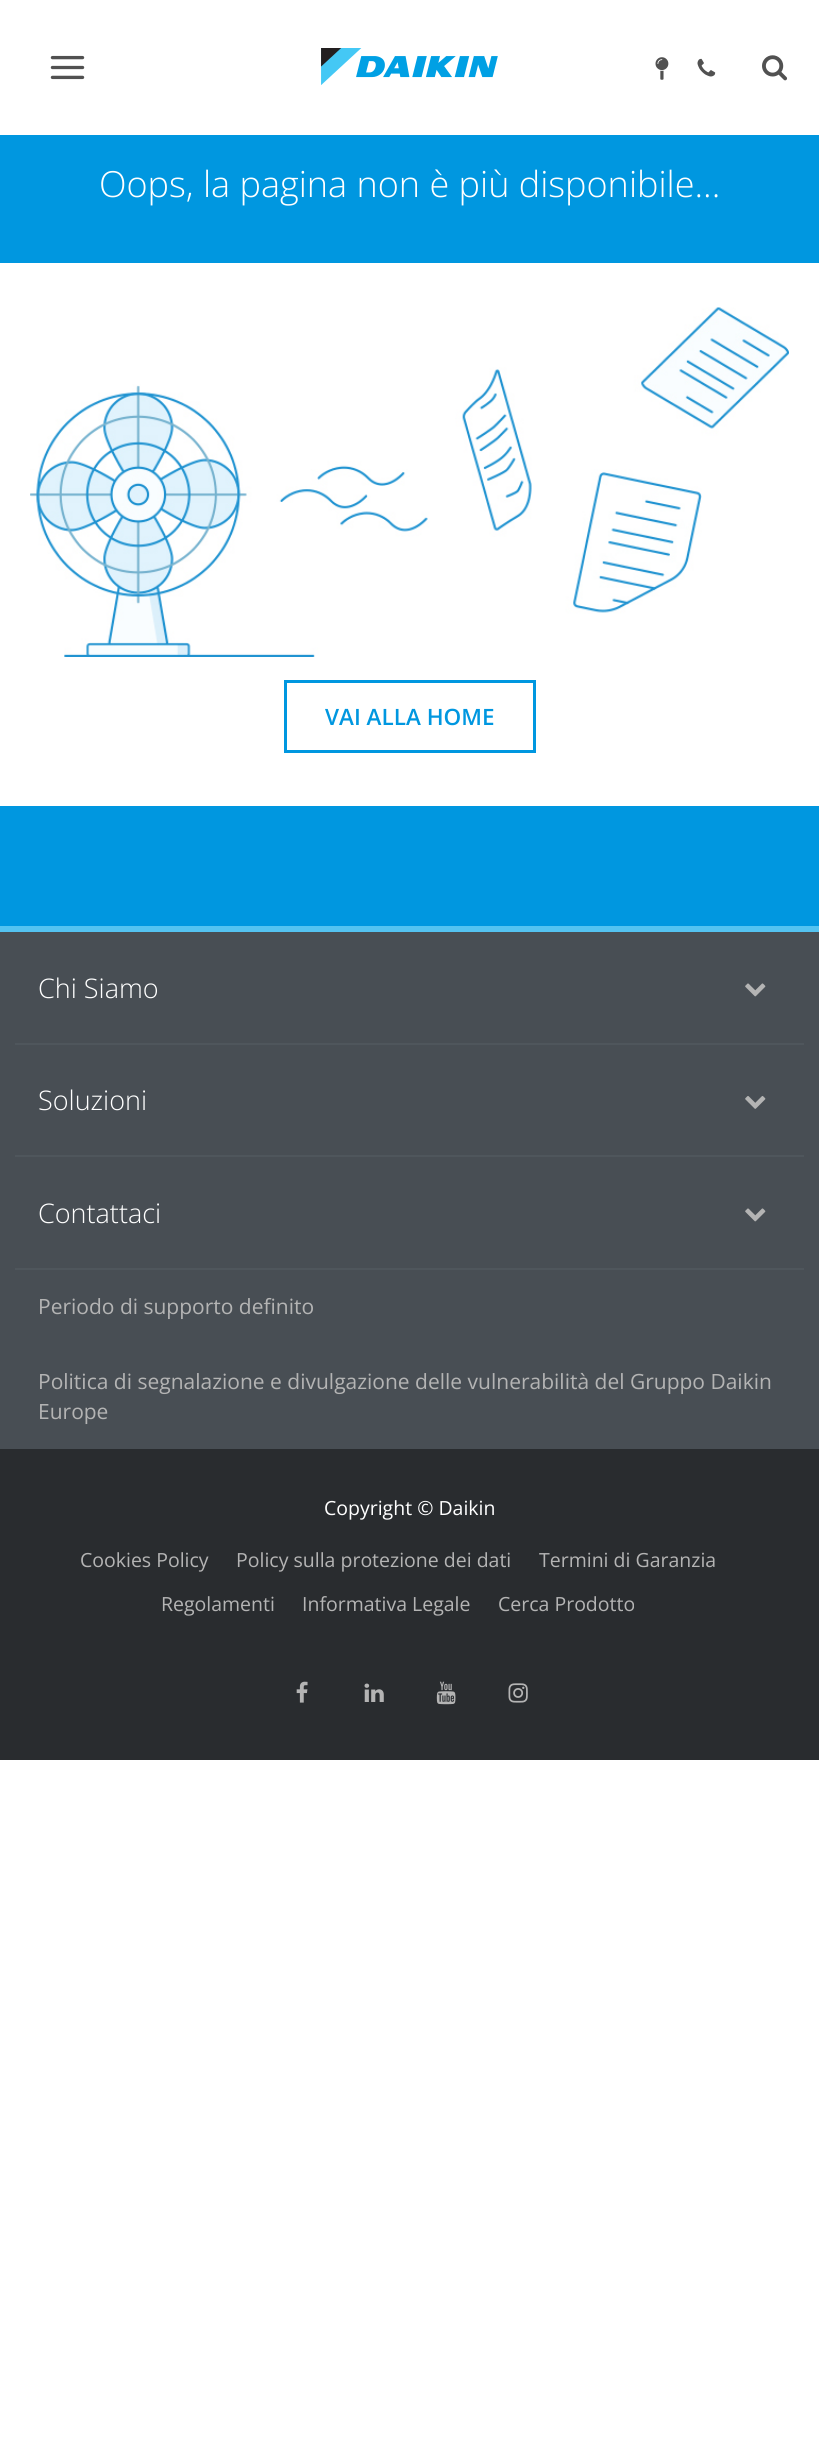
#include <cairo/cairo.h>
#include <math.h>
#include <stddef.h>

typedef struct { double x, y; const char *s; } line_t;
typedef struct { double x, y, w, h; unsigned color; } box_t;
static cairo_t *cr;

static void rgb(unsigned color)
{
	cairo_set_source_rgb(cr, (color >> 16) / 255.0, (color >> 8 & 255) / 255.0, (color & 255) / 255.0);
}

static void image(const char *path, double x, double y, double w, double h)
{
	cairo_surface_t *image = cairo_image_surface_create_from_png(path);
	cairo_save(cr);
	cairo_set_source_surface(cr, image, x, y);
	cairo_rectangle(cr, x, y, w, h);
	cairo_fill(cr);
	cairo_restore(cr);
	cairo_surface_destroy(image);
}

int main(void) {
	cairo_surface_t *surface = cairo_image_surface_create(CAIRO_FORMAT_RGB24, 819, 2440);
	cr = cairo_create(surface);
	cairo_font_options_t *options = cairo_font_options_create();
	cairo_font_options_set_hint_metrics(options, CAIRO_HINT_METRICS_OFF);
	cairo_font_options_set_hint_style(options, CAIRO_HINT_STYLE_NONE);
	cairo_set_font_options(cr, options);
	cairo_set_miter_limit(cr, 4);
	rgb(0xffffff);
	cairo_paint(cr);
	image("img/1.png", 50, 55, 35, 25);
	image("img/2.png", 321, 48, 177, 37);
	image("img/3.png", 655, 57, 14, 23);
	image("img/4.png", 697, 58, 19, 19);
	image("img/5.png", 762, 55, 26, 26);
	rgb(0x0097e0);
	cairo_rectangle(cr, 0, 135, 819, 128);
	cairo_fill(cr);
	image("img/6.png", 30, 307, 759, 350);
	cairo_rectangle(cr, 285.5, 681.5, 249, 70);
	cairo_set_line_width(cr, 3);
	cairo_stroke(cr);
	{
		static const box_t items[] = {
			{0, 806, 819, 120, 0x0097e0},
			{0, 932, 819, 517, 0x484e54},
			{0, 926, 819, 6, 0x54c3f1},
			{15, 1043, 789, 2, 0x4f565c},
		};
		for (size_t i = 0; i < sizeof items / sizeof *items; i++) {
			rgb(items[i].color);
			cairo_rectangle(cr, items[i].x, items[i].y, items[i].w, items[i].h);
			cairo_fill(cr);
		}
	}
	image("img/7.png", 745, 983, 21, 14);
	cairo_rectangle(cr, 15, 1155, 789, 2);
	cairo_fill(cr);
	image("img/8.png", 745, 1096, 21, 13);
	cairo_rectangle(cr, 15, 1268, 789, 2);
	cairo_fill(cr);
	image("img/7.png", 745, 1208, 21, 14);
	rgb(0x292c2f);
	cairo_rectangle(cr, 0, 1449, 819, 311);
	cairo_fill(cr);
	image("img/9.png", 296, 1681, 12, 22);
	image("img/10.png", 364, 1683, 20, 19);
	image("img/11.png", 436, 1681, 20, 24);
	image("img/12.png", 508, 1683, 20, 20);
	cairo_select_font_face(cr, "Open Sans Light", CAIRO_FONT_SLANT_NORMAL, CAIRO_FONT_WEIGHT_NORMAL);
	cairo_set_font_size(cr, 36);
	rgb(0xffffff);
	cairo_move_to(cr, 99, 197);
	cairo_show_text(cr, "Oops, la pagina non è più disponibile...");
	cairo_select_font_face(cr, "Open Sans SemiBold", CAIRO_FONT_SLANT_NORMAL, CAIRO_FONT_WEIGHT_NORMAL);
	cairo_set_font_size(cr, 22.5);
	rgb(0x0097e0);
	cairo_move_to(cr, 325, 725);
	cairo_show_text(cr, "VAI ALLA HOME");
	cairo_select_font_face(cr, "Open Sans Light", CAIRO_FONT_SLANT_NORMAL, CAIRO_FONT_WEIGHT_NORMAL);
	cairo_set_font_size(cr, 27);
	rgb(0xffffff);
	{
		static const line_t items[] = {
			{38, 998, "Chi Siamo"},
			{38, 1110, "Soluzioni"},
			{38, 1223, "Contattaci"},
		};
		for (size_t i = 0; i < sizeof items / sizeof *items; i++) {
			cairo_move_to(cr, items[i].x, items[i].y);
			cairo_show_text(cr, items[i].s);
		}
	}
	cairo_select_font_face(cr, "Open Sans", CAIRO_FONT_SLANT_NORMAL, CAIRO_FONT_WEIGHT_NORMAL);
	cairo_set_font_size(cr, 21);
	rgb(0xb4b4b4);
	{
		static const line_t items[] = {
			{38, 1314, "Periodo di supporto definito"},
			{38, 1389, "Politica di segnalazione e divulgazione delle vulnerabilità del Gruppo Daikin"},
			{38, 1419, "Europe"},
		};
		for (size_t i = 0; i < sizeof items / sizeof *items; i++) {
			cairo_move_to(cr, items[i].x, items[i].y);
			cairo_show_text(cr, items[i].s);
		}
	}
	cairo_set_font_size(cr, 19.5);
	rgb(0xffffff);
	cairo_move_to(cr, 324, 1515);
	cairo_show_text(cr, "Copyright © Daikin");
	rgb(0xb4b4b4);
	{
		static const line_t items[] = {
			{80, 1567, "Cookies Policy"},
			{236, 1567, "Policy sulla protezione dei dati"},
			{539, 1567, "Termini di Garanzia"},
			{161, 1611, "Regolamenti"},
			{302, 1611, "Informativa Legale"},
			{498, 1611, "Cerca Prodotto"},
		};
		for (size_t i = 0; i < sizeof items / sizeof *items; i++) {
			cairo_move_to(cr, items[i].x, items[i].y);
			cairo_show_text(cr, items[i].s);
		}
	}
	cairo_surface_write_to_png(surface, "page.png");
	cairo_font_options_destroy(options);
	cairo_destroy(cr);
	cairo_surface_destroy(surface);
	return 0;
}
